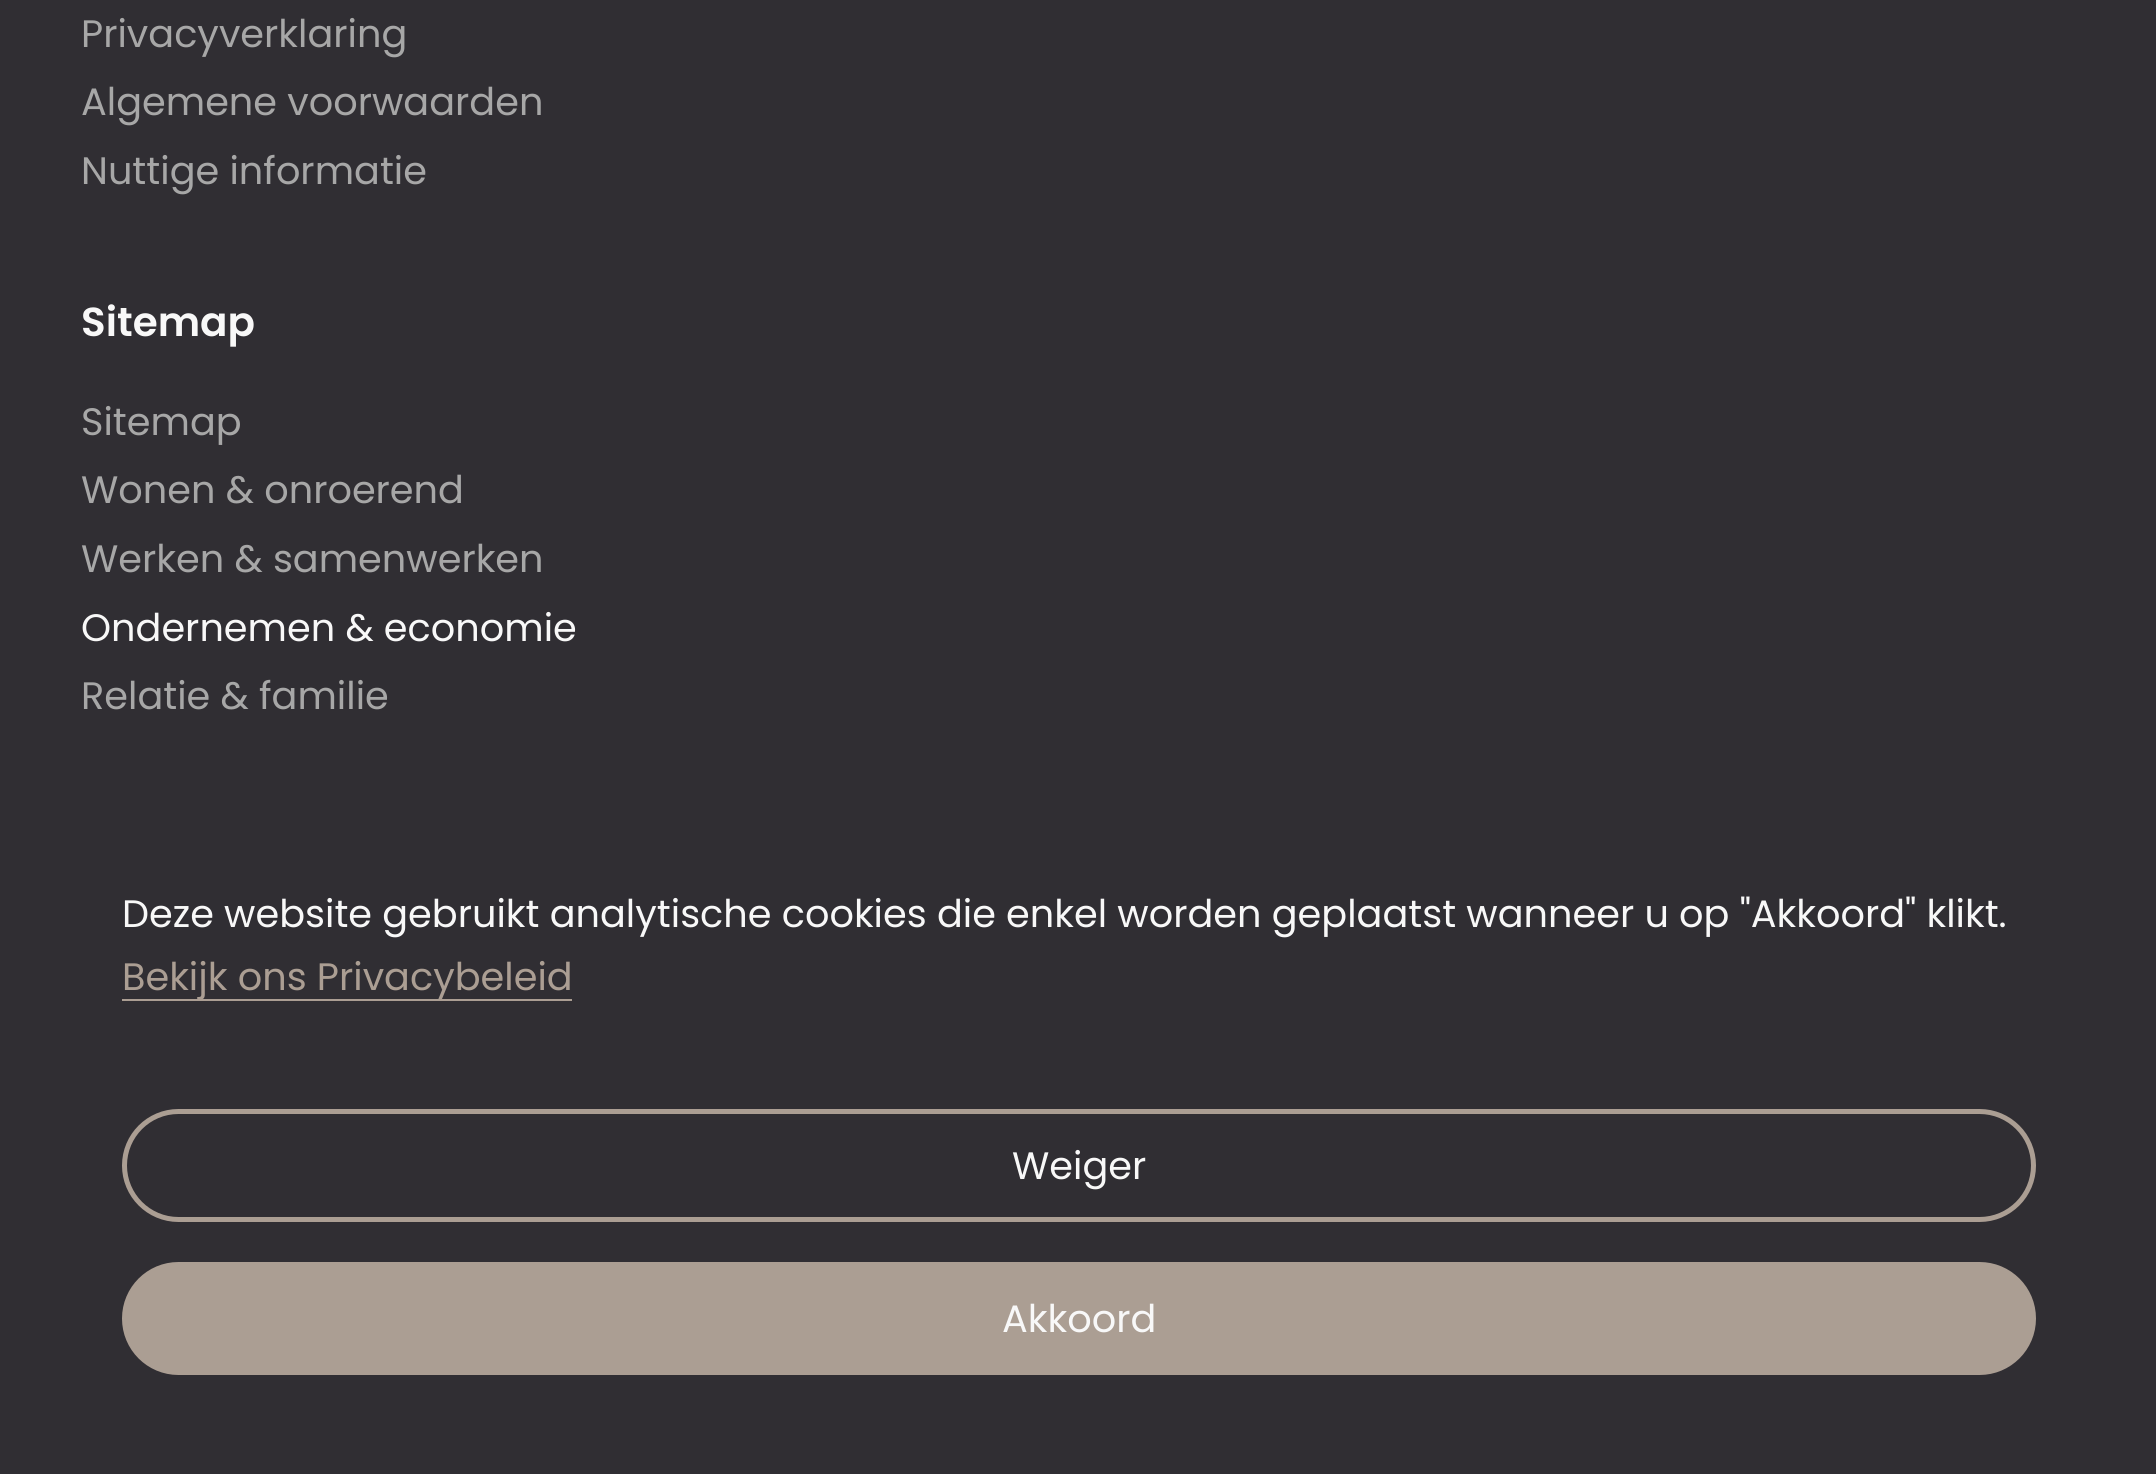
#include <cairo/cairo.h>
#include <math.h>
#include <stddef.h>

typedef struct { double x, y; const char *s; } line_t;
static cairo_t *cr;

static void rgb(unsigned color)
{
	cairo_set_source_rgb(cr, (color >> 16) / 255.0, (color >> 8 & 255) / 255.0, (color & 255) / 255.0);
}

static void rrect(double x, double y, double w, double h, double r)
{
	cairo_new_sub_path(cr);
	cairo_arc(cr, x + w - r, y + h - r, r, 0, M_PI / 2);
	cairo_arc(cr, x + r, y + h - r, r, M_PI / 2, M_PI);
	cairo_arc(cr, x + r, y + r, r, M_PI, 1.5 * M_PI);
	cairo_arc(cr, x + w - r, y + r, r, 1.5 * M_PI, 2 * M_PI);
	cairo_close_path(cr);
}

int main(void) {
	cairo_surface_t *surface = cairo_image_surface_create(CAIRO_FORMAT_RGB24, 2156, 1474);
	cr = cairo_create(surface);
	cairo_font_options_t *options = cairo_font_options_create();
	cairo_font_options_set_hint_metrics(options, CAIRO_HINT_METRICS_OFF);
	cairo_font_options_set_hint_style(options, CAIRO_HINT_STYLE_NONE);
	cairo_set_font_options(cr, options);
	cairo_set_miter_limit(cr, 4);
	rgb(0x302e33);
	cairo_paint(cr);
	rgb(0xab9e93);
	cairo_rectangle(cr, 122, 999, 450, 2);
	cairo_fill(cr);
	rrect(124.5, 1111.5, 1909, 108, 54);
	cairo_set_line_width(cr, 5);
	cairo_stroke(cr);
	rrect(124.5, 1264.5, 1909, 108, 54);
	cairo_fill_preserve(cr);
	cairo_stroke(cr);
	cairo_select_font_face(cr, "Poppins", CAIRO_FONT_SLANT_NORMAL, CAIRO_FONT_WEIGHT_NORMAL);
	cairo_set_font_size(cr, 38.25);
	rgb(0xa7a7a7);
	{
		static const line_t items[] = {
			{81, 47, "Privacyverklaring"},
			{81, 115, "Algemene voorwaarden"},
			{81, 184, "Nuttige informatie"},
		};
		for (size_t i = 0; i < sizeof items / sizeof *items; i++) {
			cairo_move_to(cr, items[i].x, items[i].y);
			cairo_show_text(cr, items[i].s);
		}
	}
	cairo_select_font_face(cr, "Poppins SemiBold", CAIRO_FONT_SLANT_NORMAL, CAIRO_FONT_WEIGHT_NORMAL);
	cairo_set_font_size(cr, 40.5);
	rgb(0xf8f8f8);
	cairo_move_to(cr, 81, 336);
	cairo_show_text(cr, "Sitemap");
	cairo_select_font_face(cr, "Poppins", CAIRO_FONT_SLANT_NORMAL, CAIRO_FONT_WEIGHT_NORMAL);
	cairo_set_font_size(cr, 38.25);
	rgb(0xa7a7a7);
	{
		static const line_t items[] = {
			{81, 435, "Sitemap"},
			{81, 503, "Wonen & onroerend"},
			{81, 572, "Werken & samenwerken"},
		};
		for (size_t i = 0; i < sizeof items / sizeof *items; i++) {
			cairo_move_to(cr, items[i].x, items[i].y);
			cairo_show_text(cr, items[i].s);
		}
	}
	rgb(0xf8f8f8);
	cairo_move_to(cr, 81, 641);
	cairo_show_text(cr, "Ondernemen & economie");
	rgb(0xa7a7a7);
	cairo_move_to(cr, 81, 709);
	cairo_show_text(cr, "Relatie & familie");
	rgb(0xf8f8f8);
	cairo_move_to(cr, 122, 927);
	cairo_show_text(cr, "Deze website gebruikt analytische cookies die enkel worden geplaatst wanneer u op \"Akkoord\" klikt.");
	rgb(0xab9e93);
	cairo_move_to(cr, 122, 990);
	cairo_show_text(cr, "Bekijk ons Privacybeleid");
	rgb(0xf8f8f8);
	cairo_move_to(cr, 1012, 1179);
	cairo_show_text(cr, "Weiger");
	cairo_move_to(cr, 1002, 1332);
	cairo_show_text(cr, "Akkoord");
	cairo_surface_write_to_png(surface, "page.png");
	cairo_font_options_destroy(options);
	cairo_destroy(cr);
	cairo_surface_destroy(surface);
	return 0;
}
